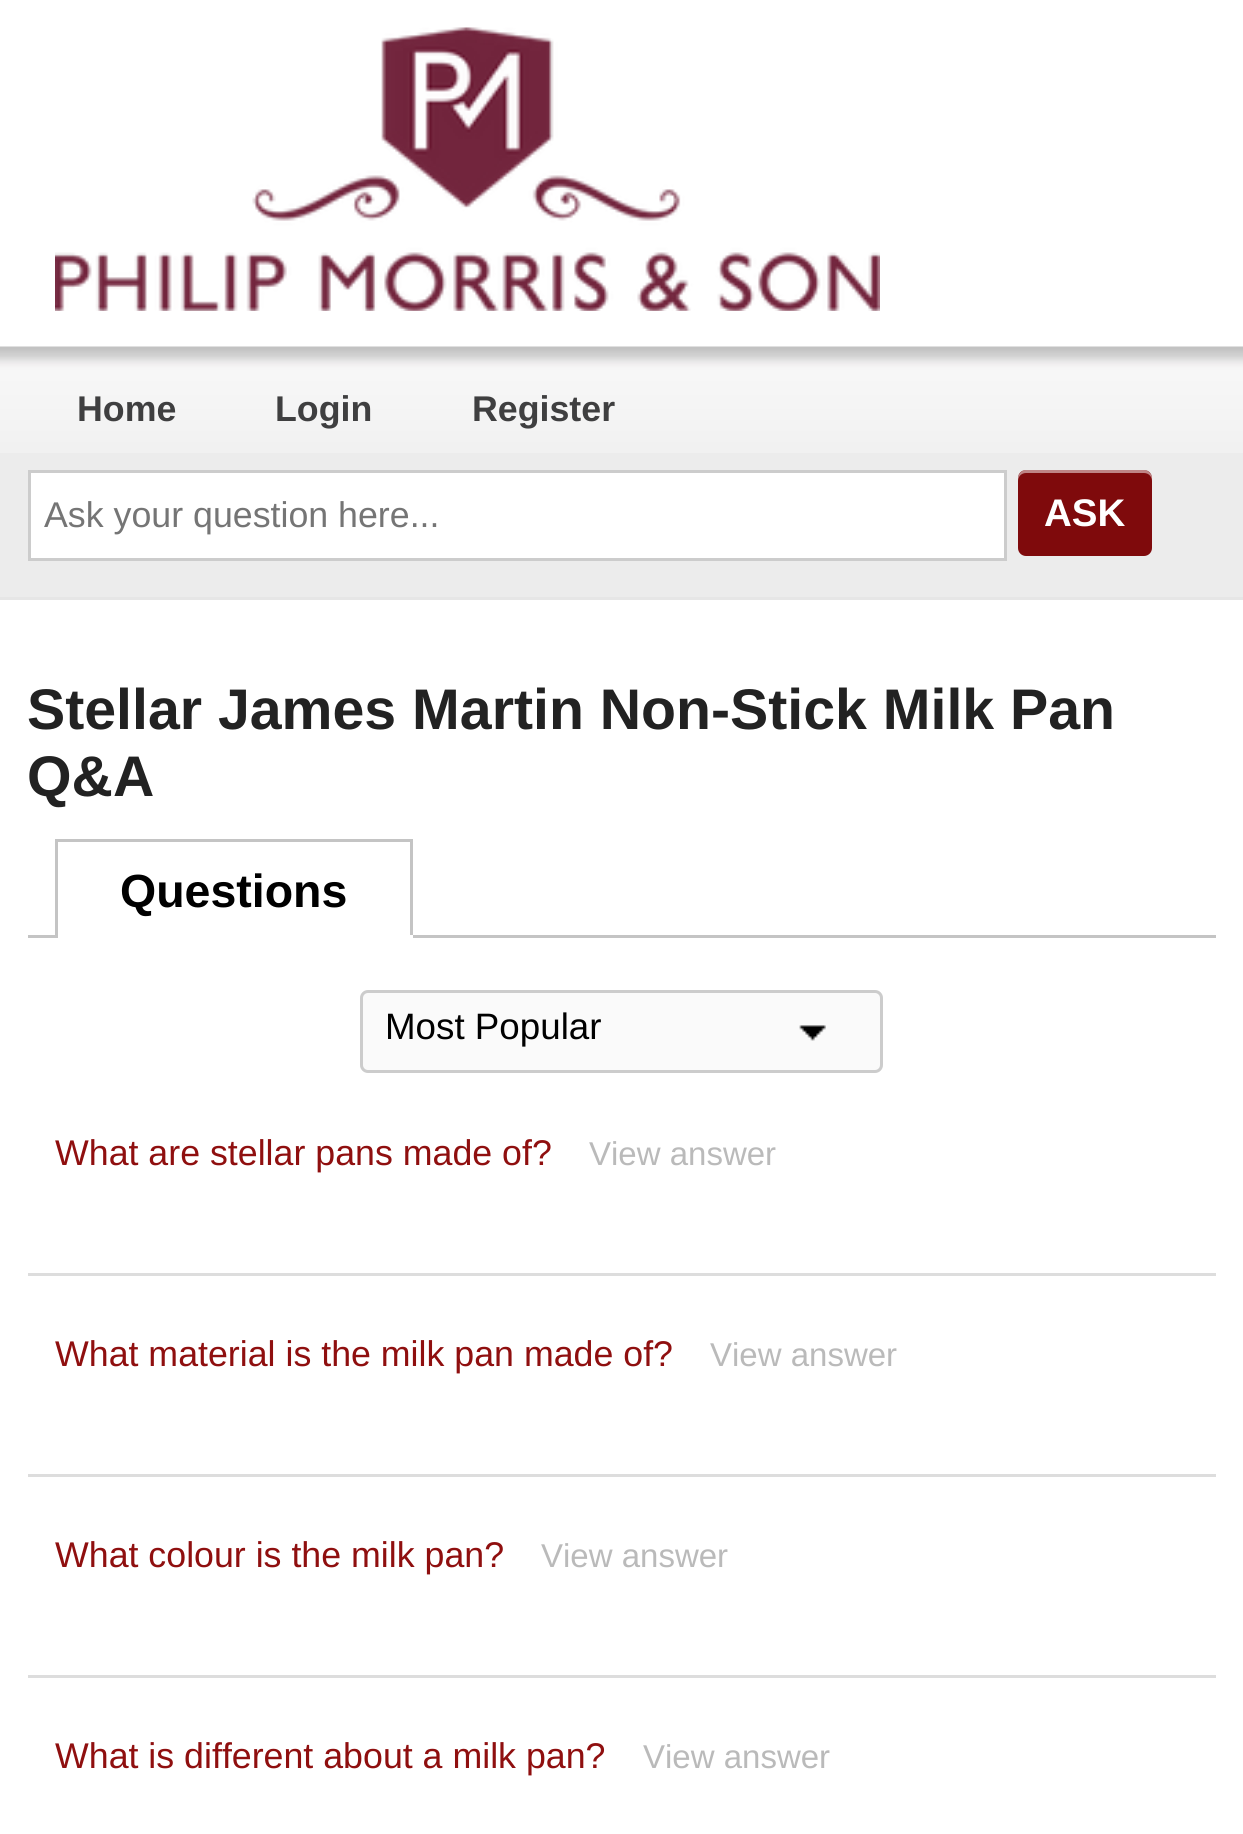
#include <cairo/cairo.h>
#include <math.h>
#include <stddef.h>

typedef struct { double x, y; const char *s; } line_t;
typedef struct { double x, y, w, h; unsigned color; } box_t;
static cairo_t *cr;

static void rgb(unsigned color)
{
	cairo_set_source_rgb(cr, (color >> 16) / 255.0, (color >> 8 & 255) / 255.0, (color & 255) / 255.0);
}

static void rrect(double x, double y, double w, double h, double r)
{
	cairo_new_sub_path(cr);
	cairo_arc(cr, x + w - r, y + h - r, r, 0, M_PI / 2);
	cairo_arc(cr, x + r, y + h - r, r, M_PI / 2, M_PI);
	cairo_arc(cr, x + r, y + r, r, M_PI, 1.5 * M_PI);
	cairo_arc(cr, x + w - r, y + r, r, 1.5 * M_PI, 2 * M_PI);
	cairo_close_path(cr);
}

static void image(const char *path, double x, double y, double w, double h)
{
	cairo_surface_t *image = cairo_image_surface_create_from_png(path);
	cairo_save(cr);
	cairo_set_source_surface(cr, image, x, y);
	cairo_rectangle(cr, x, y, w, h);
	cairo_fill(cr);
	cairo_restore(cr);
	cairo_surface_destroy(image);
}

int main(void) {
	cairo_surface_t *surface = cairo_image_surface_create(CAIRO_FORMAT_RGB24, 1243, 1834);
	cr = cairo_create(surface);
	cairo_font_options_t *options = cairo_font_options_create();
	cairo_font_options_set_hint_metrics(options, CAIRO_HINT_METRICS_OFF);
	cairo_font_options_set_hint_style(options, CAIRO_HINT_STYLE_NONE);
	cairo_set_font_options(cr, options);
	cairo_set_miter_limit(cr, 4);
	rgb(0xffffff);
	cairo_paint(cr);
	image("img/1.png", 55, 27, 825, 284);
	rgb(0xececec);
	cairo_rectangle(cr, 0, 453, 1243, 144);
	cairo_fill(cr);
	image("img/2.png", 0, 346, 1243, 107);
	rgb(0xe6e6e6);
	cairo_rectangle(cr, 0, 597, 1243, 3);
	cairo_fill(cr);
	rgb(0xffffff);
	cairo_rectangle(cr, 29.5, 471.5, 976, 88);
	cairo_fill_preserve(cr);
	rgb(0xcccccc);
	cairo_set_line_width(cr, 3);
	cairo_stroke(cr);
	rgb(0x7f0a0c);
	rrect(1018, 470, 134, 86, 8);
	cairo_fill(cr);
	cairo_set_source_rgba(cr, 1, 1, 1, 0.5);
	cairo_new_path(cr);
	cairo_move_to(cr, 1026, 473);
	cairo_line_to(cr, 1144, 473);
	cairo_curve_to(cr, 1149, 473, 1152, 477, 1152, 481);
	cairo_line_to(cr, 1152, 478);
	cairo_curve_to(cr, 1152, 474, 1148, 470, 1144, 470);
	cairo_line_to(cr, 1026, 470);
	cairo_curve_to(cr, 1022, 470, 1018, 474, 1018, 478);
	cairo_line_to(cr, 1018, 481);
	cairo_curve_to(cr, 1018, 477, 1021, 473, 1026, 473);
	cairo_close_path(cr);
	cairo_fill(cr);
	{
		static const box_t items[] = {
			{55, 839, 358, 3, 0xc4c4c4},
			{410, 839, 3, 99, 0xc4c4c4},
			{410, 935, 3, 3, 0xffffff},
			{55, 839, 3, 99, 0xc4c4c4},
			{28, 935, 27, 3, 0xc4c4c4},
			{413, 935, 803, 3, 0xc4c4c4},
		};
		for (size_t i = 0; i < sizeof items / sizeof *items; i++) {
			rgb(items[i].color);
			cairo_rectangle(cr, items[i].x, items[i].y, items[i].w, items[i].h);
			cairo_fill(cr);
		}
	}
	rgb(0xfafafa);
	rrect(360, 990, 523, 83, 8);
	cairo_fill(cr);
	image("img/3.png", 799, 1025, 27, 16);
	rrect(361.5, 991.5, 520, 80, 6.5);
	rgb(0xcccccc);
	cairo_stroke(cr);
	{
		static const box_t items[] = {
			{28, 1273, 1188, 3, 0xdddddd},
			{28, 1474, 1188, 3, 0xdddddd},
			{28, 1675, 1188, 3, 0xdddddd},
		};
		for (size_t i = 0; i < sizeof items / sizeof *items; i++) {
			rgb(items[i].color);
			cairo_rectangle(cr, items[i].x, items[i].y, items[i].w, items[i].h);
			cairo_fill(cr);
		}
	}
	cairo_select_font_face(cr, "Liberation Sans", CAIRO_FONT_SLANT_NORMAL, CAIRO_FONT_WEIGHT_BOLD);
	cairo_set_font_size(cr, 35.75);
	rgb(0x3f3f40);
	{
		static const line_t items[] = {
			{77, 421, "Home"},
			{275, 421, "Login"},
			{472, 421, "Register"},
		};
		for (size_t i = 0; i < sizeof items / sizeof *items; i++) {
			cairo_move_to(cr, items[i].x, items[i].y);
			cairo_show_text(cr, items[i].s);
		}
	}
	cairo_select_font_face(cr, "Liberation Sans", CAIRO_FONT_SLANT_NORMAL, CAIRO_FONT_WEIGHT_NORMAL);
	rgb(0x757575);
	cairo_move_to(cr, 44, 527);
	cairo_show_text(cr, "Ask your question here...");
	cairo_select_font_face(cr, "Liberation Sans", CAIRO_FONT_SLANT_NORMAL, CAIRO_FONT_WEIGHT_BOLD);
	cairo_set_font_size(cr, 38.5);
	rgb(0xffffff);
	cairo_move_to(cr, 1044, 526);
	cairo_show_text(cr, "ASK");
	cairo_set_font_size(cr, 57.25);
	rgb(0x222222);
	cairo_move_to(cr, 27, 729);
	cairo_show_text(cr, "Stellar James Martin Non-Stick Milk Pan");
	cairo_move_to(cr, 27, 796);
	cairo_show_text(cr, "Q&A");
	cairo_set_font_size(cr, 46.5);
	rgb(0x000000);
	cairo_move_to(cr, 120, 907);
	cairo_show_text(cr, "Questions");
	cairo_select_font_face(cr, "Liberation Sans", CAIRO_FONT_SLANT_NORMAL, CAIRO_FONT_WEIGHT_NORMAL);
	cairo_set_font_size(cr, 36.75);
	cairo_move_to(cr, 385, 1039);
	cairo_show_text(cr, "Most Popular");
	cairo_set_font_size(cr, 35.75);
	rgb(0x8f0f0f);
	cairo_move_to(cr, 55, 1165);
	cairo_show_text(cr, "What are stellar pans made of?");
	cairo_set_font_size(cr, 33);
	rgb(0xbababa);
	cairo_move_to(cr, 589, 1165);
	cairo_show_text(cr, "View answer");
	cairo_set_font_size(cr, 35.75);
	rgb(0x8f0f0f);
	cairo_move_to(cr, 55, 1366);
	cairo_show_text(cr, "What material is the milk pan made of?");
	cairo_set_font_size(cr, 33);
	rgb(0xbababa);
	cairo_move_to(cr, 710, 1366);
	cairo_show_text(cr, "View answer");
	cairo_set_font_size(cr, 35.75);
	rgb(0x8f0f0f);
	cairo_move_to(cr, 55, 1567);
	cairo_show_text(cr, "What colour is the milk pan?");
	cairo_set_font_size(cr, 33);
	rgb(0xbababa);
	cairo_move_to(cr, 541, 1567);
	cairo_show_text(cr, "View answer");
	cairo_set_font_size(cr, 35.75);
	rgb(0x8f0f0f);
	cairo_move_to(cr, 55, 1768);
	cairo_show_text(cr, "What is different about a milk pan?");
	cairo_set_font_size(cr, 33);
	rgb(0xbababa);
	cairo_move_to(cr, 643, 1768);
	cairo_show_text(cr, "View answer");
	cairo_surface_write_to_png(surface, "page.png");
	cairo_font_options_destroy(options);
	cairo_destroy(cr);
	cairo_surface_destroy(surface);
	return 0;
}
